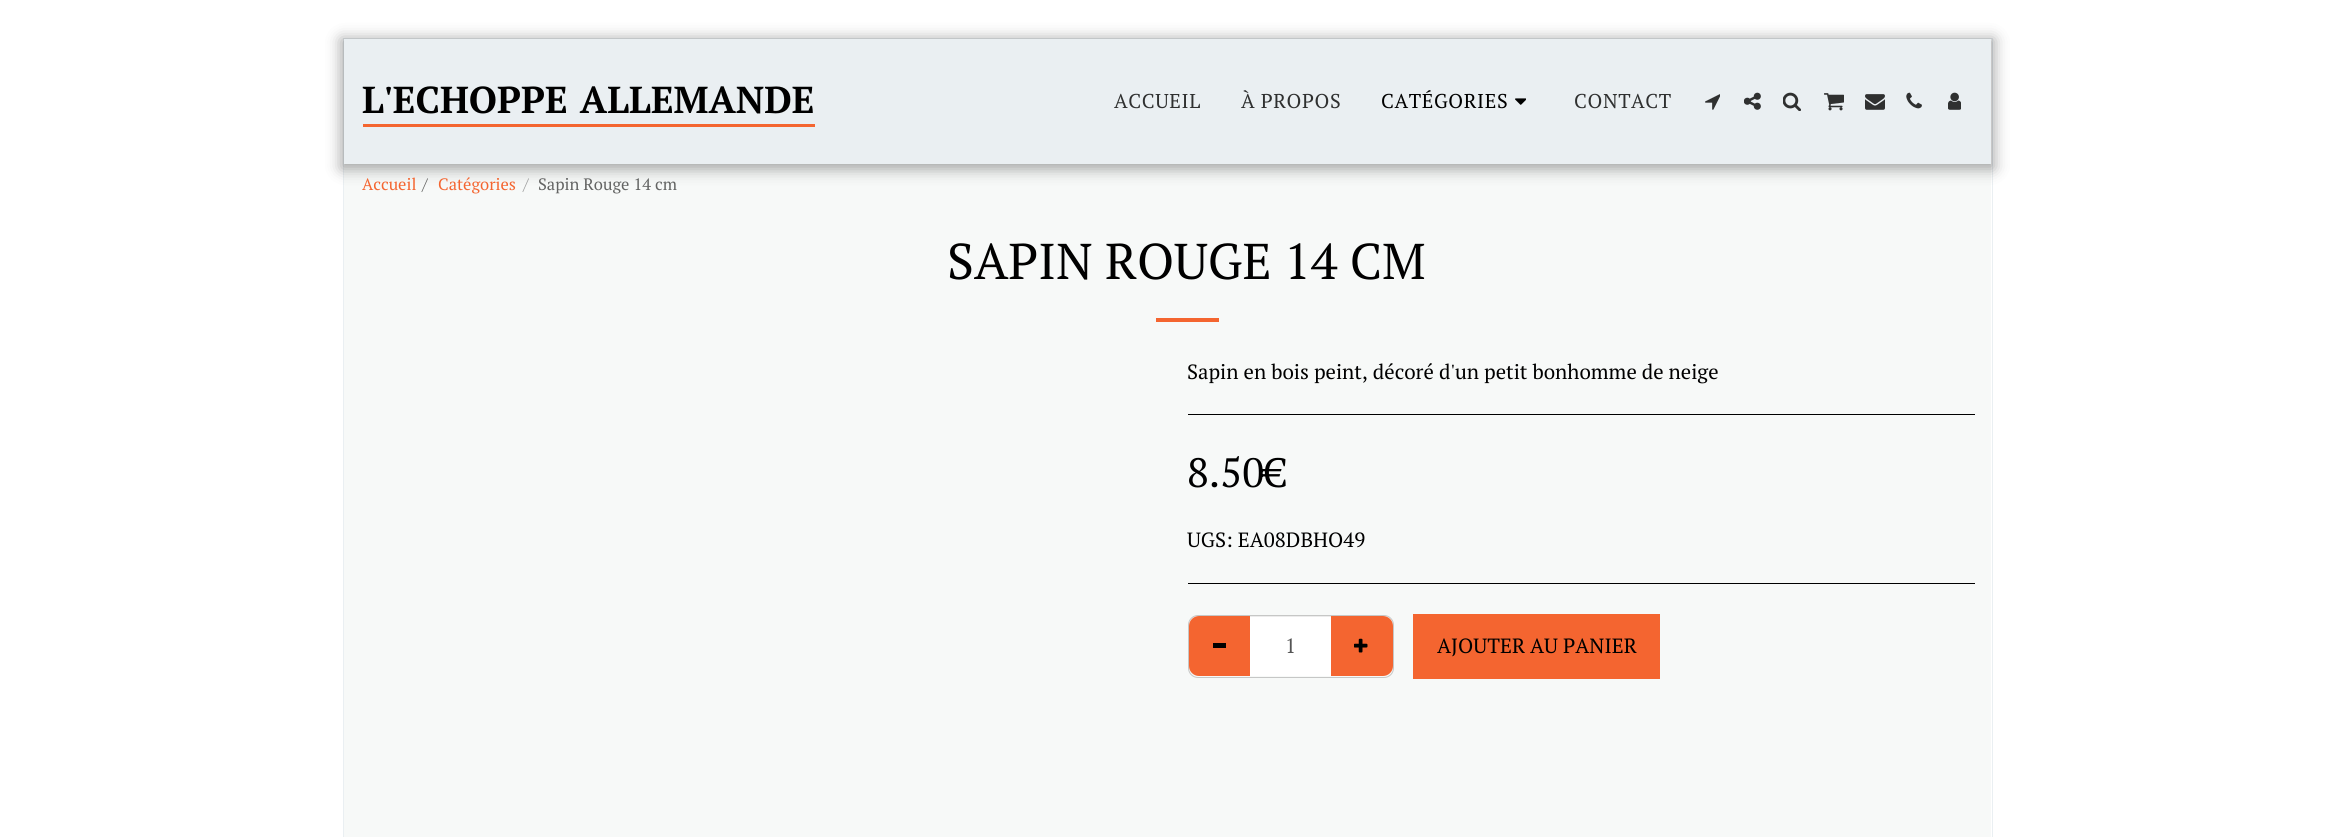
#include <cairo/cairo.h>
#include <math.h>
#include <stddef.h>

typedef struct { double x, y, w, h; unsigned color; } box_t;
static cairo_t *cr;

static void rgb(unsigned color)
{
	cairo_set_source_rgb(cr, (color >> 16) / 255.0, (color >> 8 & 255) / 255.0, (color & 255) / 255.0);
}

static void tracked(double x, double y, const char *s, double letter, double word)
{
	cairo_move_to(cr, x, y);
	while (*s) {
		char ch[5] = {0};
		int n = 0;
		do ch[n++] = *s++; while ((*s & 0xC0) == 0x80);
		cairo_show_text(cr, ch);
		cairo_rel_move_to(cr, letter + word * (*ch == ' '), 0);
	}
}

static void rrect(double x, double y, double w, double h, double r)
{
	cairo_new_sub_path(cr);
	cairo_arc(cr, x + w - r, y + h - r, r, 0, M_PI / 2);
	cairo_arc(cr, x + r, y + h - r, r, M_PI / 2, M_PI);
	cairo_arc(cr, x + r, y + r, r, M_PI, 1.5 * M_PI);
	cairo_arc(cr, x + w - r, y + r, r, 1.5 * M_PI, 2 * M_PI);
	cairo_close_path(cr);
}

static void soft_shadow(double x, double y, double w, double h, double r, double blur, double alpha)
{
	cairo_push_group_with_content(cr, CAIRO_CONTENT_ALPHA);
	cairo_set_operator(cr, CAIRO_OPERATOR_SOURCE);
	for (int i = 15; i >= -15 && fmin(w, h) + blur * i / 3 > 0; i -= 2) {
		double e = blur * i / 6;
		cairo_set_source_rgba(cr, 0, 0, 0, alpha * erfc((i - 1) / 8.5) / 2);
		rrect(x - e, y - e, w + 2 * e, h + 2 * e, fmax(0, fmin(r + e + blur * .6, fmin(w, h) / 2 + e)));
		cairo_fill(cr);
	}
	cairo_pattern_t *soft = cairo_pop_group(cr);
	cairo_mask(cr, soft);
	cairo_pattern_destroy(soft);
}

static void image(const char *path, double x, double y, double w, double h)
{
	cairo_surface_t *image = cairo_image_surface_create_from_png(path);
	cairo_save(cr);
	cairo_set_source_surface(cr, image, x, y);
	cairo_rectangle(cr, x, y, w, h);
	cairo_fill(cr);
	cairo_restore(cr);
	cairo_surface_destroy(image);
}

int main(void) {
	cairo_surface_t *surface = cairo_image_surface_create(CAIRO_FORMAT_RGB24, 2333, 837);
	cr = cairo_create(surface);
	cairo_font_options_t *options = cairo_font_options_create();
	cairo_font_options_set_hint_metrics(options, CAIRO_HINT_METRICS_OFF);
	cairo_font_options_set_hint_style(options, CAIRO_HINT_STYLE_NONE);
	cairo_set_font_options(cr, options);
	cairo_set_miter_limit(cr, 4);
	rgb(0xffffff);
	cairo_paint(cr);
	cairo_rectangle(cr, 343.5, 38.5, 1649, 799);
	rgb(0xeaeff2);
	cairo_set_line_width(cr, 1);
	cairo_stroke(cr);
	rgb(0xf7f9f8);
	cairo_rectangle(cr, 344, 164, 1647, 673);
	cairo_fill(cr);
	rgb(0x000000);
	soft_shadow(341, 39, 1653, 130, 0, 7.5, 0.35);
	rgb(0xeaeff2);
	cairo_rectangle(cr, 344, 39, 1647, 125);
	cairo_fill(cr);
	rgb(0xf46530);
	cairo_rectangle(cr, 363, 124, 452, 3);
	cairo_fill(cr);
	image("img/1.png", 1515, 98, 11, 7);
	image("img/2.png", 1705, 94, 15, 16);
	image("img/3.png", 1744, 92, 17, 18);
	image("img/4.png", 1783, 92, 18, 19);
	image("img/5.png", 1824, 93, 20, 18);
	image("img/6.png", 1865, 94, 20, 16);
	image("img/7.png", 1906, 92, 16, 17);
	image("img/8.png", 1948, 92, 13, 18);
	{
		static const box_t items[] = {
			{1156, 318, 63, 4, 0xf46530},
			{1188, 414, 787, 1, 0x000000},
			{1188, 583, 787, 1, 0x000000},
		};
		for (size_t i = 0; i < sizeof items / sizeof *items; i++) {
			rgb(items[i].color);
			cairo_rectangle(cr, items[i].x, items[i].y, items[i].w, items[i].h);
			cairo_fill(cr);
		}
	}
	rrect(1188.5, 615.5, 205, 62, 9.5);
	rgb(0xc6c7c6);
	cairo_stroke(cr);
	rgb(0xf46530);
	cairo_new_path(cr);
	cairo_move_to(cr, 1199, 616);
	cairo_line_to(cr, 1251, 616);
	cairo_line_to(cr, 1251, 676);
	cairo_line_to(cr, 1199, 676);
	cairo_curve_to(cr, 1193.5, 676, 1189, 671.5, 1189, 666);
	cairo_line_to(cr, 1189, 626);
	cairo_curve_to(cr, 1189, 620.5, 1193.5, 616, 1199, 616);
	cairo_close_path(cr);
	cairo_fill(cr);
	rgb(0x000000);
	cairo_rectangle(cr, 1213, 643, 13, 5);
	cairo_fill(cr);
	rgb(0xf46530);
	cairo_new_path(cr);
	cairo_move_to(cr, 1330, 616);
	cairo_line_to(cr, 1383, 616);
	cairo_curve_to(cr, 1388.5, 616, 1393, 620.5, 1393, 626);
	cairo_line_to(cr, 1393, 666);
	cairo_curve_to(cr, 1393, 671.5, 1388.5, 676, 1383, 676);
	cairo_line_to(cr, 1330, 676);
	cairo_close_path(cr);
	cairo_fill(cr);
	rgb(0xffffff);
	cairo_rectangle(cr, 1250, 617, 81, 59);
	cairo_fill(cr);
	rgb(0xececec);
	cairo_rectangle(cr, 1250, 616, 81, 1);
	cairo_fill(cr);
	image("img/9.png", 1354, 638, 14, 15);
	rgb(0xf46530);
	cairo_rectangle(cr, 1413, 614, 247, 65);
	cairo_fill(cr);
	cairo_select_font_face(cr, "PT Serif", CAIRO_FONT_SLANT_NORMAL, CAIRO_FONT_WEIGHT_BOLD);
	cairo_set_font_size(cr, 37.5);
	rgb(0x000000);
	tracked(362, 113, "L'ECHOPPE ALLEMANDE", 0, 2);
	cairo_select_font_face(cr, "PT Serif", CAIRO_FONT_SLANT_NORMAL, CAIRO_FONT_WEIGHT_NORMAL);
	cairo_set_font_size(cr, 20);
	rgb(0x2f3030);
	tracked(1114, 108, "ACCUEIL", 0.6, 0);
	tracked(1241, 108, "À PROPOS", 0.6, 0);
	rgb(0x000000);
	tracked(1381, 108, "CATÉGORIES", 0.6, 0);
	rgb(0x2f3030);
	tracked(1574, 108, "CONTACT", 0.6, 0);
	cairo_set_font_size(cr, 16.5);
	rgb(0xf46530);
	cairo_move_to(cr, 362, 190);
	cairo_show_text(cr, "Accueil");
	rgb(0x636463);
	cairo_move_to(cr, 422, 190);
	cairo_show_text(cr, "/");
	rgb(0xf46530);
	cairo_move_to(cr, 438, 190);
	cairo_show_text(cr, "Catégories");
	rgb(0x9e9f9f);
	cairo_move_to(cr, 523, 190);
	cairo_show_text(cr, "/");
	rgb(0x636463);
	cairo_move_to(cr, 538, 190);
	cairo_show_text(cr, "Sapin Rouge 14 cm");
	cairo_set_font_size(cr, 50.25);
	rgb(0x000000);
	cairo_move_to(cr, 947, 279);
	cairo_show_text(cr, "SAPIN ROUGE 14 CM");
	cairo_set_font_size(cr, 20.6);
	cairo_move_to(cr, 1187, 379);
	cairo_show_text(cr, "Sapin en bois peint, décoré d'un petit bonhomme de neige");
	cairo_set_font_size(cr, 41);
	cairo_move_to(cr, 1187, 487);
	cairo_show_text(cr, "8.50€");
	cairo_set_font_size(cr, 20.6);
	cairo_move_to(cr, 1187, 547);
	cairo_show_text(cr, "UGS: EA08DBHO49");
	rgb(0x555555);
	cairo_move_to(cr, 1285, 653);
	cairo_show_text(cr, "1");
	rgb(0x000000);
	cairo_move_to(cr, 1437, 653);
	cairo_show_text(cr, "AJOUTER AU PANIER");
	cairo_surface_write_to_png(surface, "page.png");
	cairo_font_options_destroy(options);
	cairo_destroy(cr);
	cairo_surface_destroy(surface);
	return 0;
}
